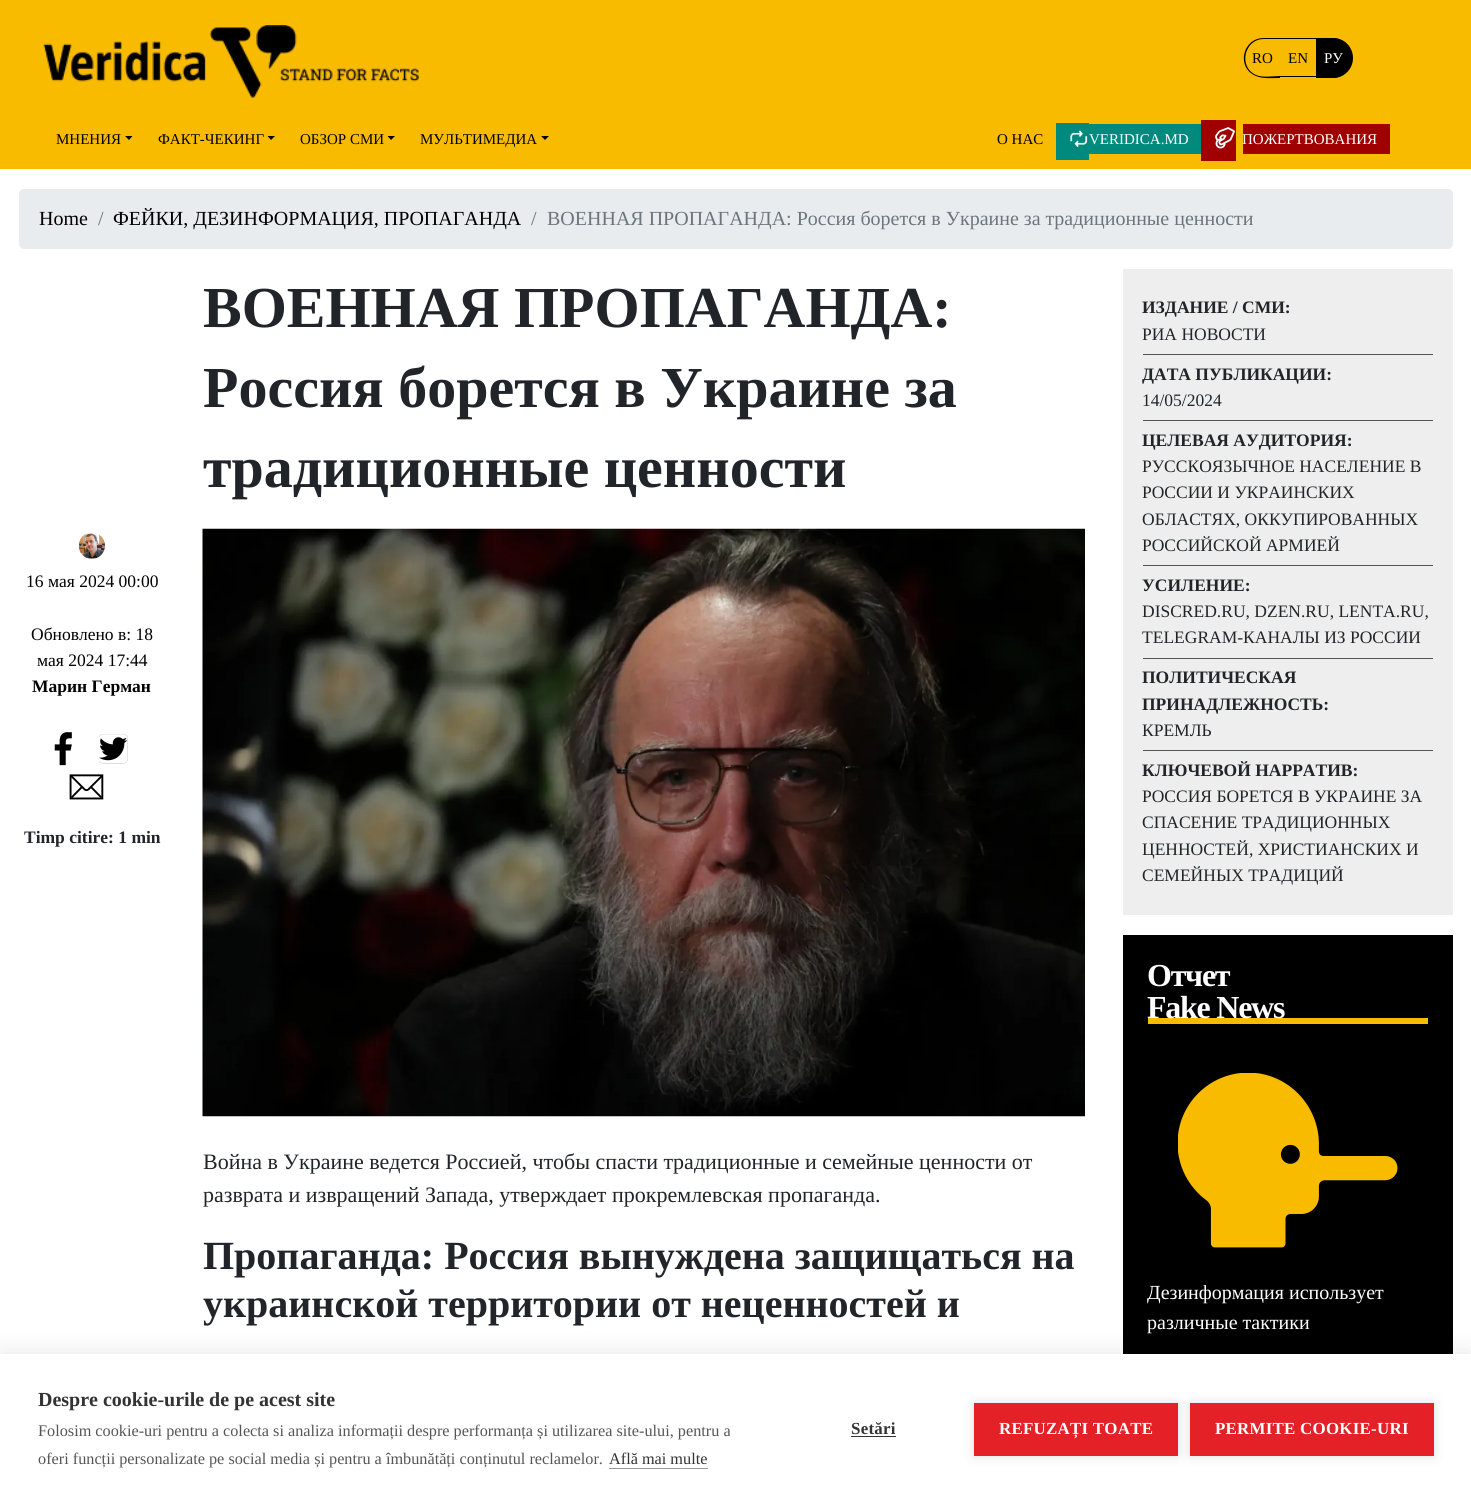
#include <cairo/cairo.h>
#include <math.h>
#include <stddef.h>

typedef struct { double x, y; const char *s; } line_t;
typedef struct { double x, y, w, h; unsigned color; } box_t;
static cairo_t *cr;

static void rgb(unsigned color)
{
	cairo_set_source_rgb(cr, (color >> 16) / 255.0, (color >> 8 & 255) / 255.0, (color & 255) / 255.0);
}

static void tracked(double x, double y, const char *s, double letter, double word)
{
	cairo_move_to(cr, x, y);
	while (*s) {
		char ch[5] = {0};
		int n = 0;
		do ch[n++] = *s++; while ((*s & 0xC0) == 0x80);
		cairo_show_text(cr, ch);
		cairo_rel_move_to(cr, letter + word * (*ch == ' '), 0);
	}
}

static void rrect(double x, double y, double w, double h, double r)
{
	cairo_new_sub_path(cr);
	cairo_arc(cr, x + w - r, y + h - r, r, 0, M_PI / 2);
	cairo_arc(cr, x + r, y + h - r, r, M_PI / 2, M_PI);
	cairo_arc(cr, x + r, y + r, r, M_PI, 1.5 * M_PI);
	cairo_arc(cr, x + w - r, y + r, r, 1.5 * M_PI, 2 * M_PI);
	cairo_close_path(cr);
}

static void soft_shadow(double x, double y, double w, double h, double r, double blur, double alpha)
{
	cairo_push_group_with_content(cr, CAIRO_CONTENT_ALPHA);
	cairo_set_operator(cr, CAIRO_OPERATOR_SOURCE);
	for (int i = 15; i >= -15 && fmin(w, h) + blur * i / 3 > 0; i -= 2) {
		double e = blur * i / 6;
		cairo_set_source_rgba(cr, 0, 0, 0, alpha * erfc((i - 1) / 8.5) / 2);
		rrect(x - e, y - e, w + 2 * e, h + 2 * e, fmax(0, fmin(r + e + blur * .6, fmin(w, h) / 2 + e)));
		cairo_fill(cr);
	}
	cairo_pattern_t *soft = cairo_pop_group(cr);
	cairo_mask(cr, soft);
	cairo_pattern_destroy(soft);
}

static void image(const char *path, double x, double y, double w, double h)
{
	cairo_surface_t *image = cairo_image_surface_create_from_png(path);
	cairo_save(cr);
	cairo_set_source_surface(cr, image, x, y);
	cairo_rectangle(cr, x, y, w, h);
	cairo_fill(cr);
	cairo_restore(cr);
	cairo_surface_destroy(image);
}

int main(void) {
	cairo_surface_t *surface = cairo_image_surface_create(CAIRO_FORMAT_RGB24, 1471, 1503);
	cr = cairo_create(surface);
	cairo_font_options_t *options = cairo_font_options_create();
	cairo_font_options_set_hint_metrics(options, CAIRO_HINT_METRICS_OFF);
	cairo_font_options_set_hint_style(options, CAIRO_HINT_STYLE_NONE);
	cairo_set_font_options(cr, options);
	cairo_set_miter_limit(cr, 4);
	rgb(0xffffff);
	cairo_paint(cr);
	rgb(0xf9bb00);
	cairo_rectangle(cr, 0, 0, 1471, 169);
	cairo_fill(cr);
	image("img/1.png", 43, 25, 376, 73);
	rgb(0x000000);
	cairo_set_fill_rule(cr, CAIRO_FILL_RULE_EVEN_ODD);
	cairo_new_path(cr);
	cairo_move_to(cr, 1264, 38);
	cairo_line_to(cr, 1280, 38);
	cairo_line_to(cr, 1280, 78);
	cairo_curve_to(cr, 1272, 78, 1263, 79, 1256, 76);
	cairo_curve_to(cr, 1236, 68, 1242, 38, 1264, 38);
	cairo_close_path(cr);
	cairo_move_to(cr, 1264, 39);
	cairo_line_to(cr, 1280, 39);
	cairo_line_to(cr, 1280, 76);
	cairo_curve_to(cr, 1273, 76, 1263, 78, 1256, 75);
	cairo_curve_to(cr, 1238, 67, 1244, 39, 1264, 39);
	cairo_close_path(cr);
	cairo_fill(cr);
	cairo_rectangle(cr, 1280, 38, 36, 1);
	cairo_fill(cr);
	cairo_rectangle(cr, 1280, 76, 36, 1);
	cairo_fill(cr);
	cairo_new_path(cr);
	cairo_move_to(cr, 1316, 38);
	cairo_line_to(cr, 1333, 38);
	cairo_curve_to(cr, 1344, 38, 1353, 47, 1353, 58);
	cairo_curve_to(cr, 1353, 69, 1344, 78, 1333, 78);
	cairo_line_to(cr, 1316, 78);
	cairo_close_path(cr);
	cairo_fill(cr);
	cairo_new_path(cr);
	cairo_move_to(cr, 1316, 38);
	cairo_line_to(cr, 1332, 38);
	cairo_curve_to(cr, 1344, 38, 1352, 46, 1352, 58);
	cairo_curve_to(cr, 1352, 69, 1344, 78, 1332, 78);
	cairo_line_to(cr, 1316, 78);
	cairo_close_path(cr);
	cairo_move_to(cr, 1316, 39);
	cairo_line_to(cr, 1332, 39);
	cairo_curve_to(cr, 1343, 39, 1351, 47, 1351, 58);
	cairo_curve_to(cr, 1351, 68, 1343, 76, 1332, 76);
	cairo_line_to(cr, 1316, 76);
	cairo_close_path(cr);
	cairo_fill(cr);
	cairo_set_fill_rule(cr, CAIRO_FILL_RULE_WINDING);
	cairo_new_path(cr);
	cairo_move_to(cr, 125, 136);
	cairo_line_to(cr, 132.5, 136);
	cairo_line_to(cr, 129, 140);
	cairo_close_path(cr);
	cairo_fill(cr);
	cairo_new_path(cr);
	cairo_move_to(cr, 267.5, 136);
	cairo_line_to(cr, 275, 136);
	cairo_line_to(cr, 271, 140);
	cairo_close_path(cr);
	cairo_fill(cr);
	cairo_new_path(cr);
	cairo_move_to(cr, 387.5, 136);
	cairo_line_to(cr, 395, 136);
	cairo_line_to(cr, 391, 140);
	cairo_close_path(cr);
	cairo_fill(cr);
	cairo_new_path(cr);
	cairo_move_to(cr, 541, 136);
	cairo_line_to(cr, 549, 136);
	cairo_line_to(cr, 545, 140);
	cairo_close_path(cr);
	cairo_fill(cr);
	rgb(0x008a7e);
	cairo_rectangle(cr, 1056, 123, 33, 37);
	cairo_fill(cr);
	cairo_rectangle(cr, 1089, 124, 112, 30);
	cairo_fill(cr);
	image("img/2.png", 1070, 130, 18, 17);
	rgb(0xa00000);
	cairo_rectangle(cr, 1201, 120, 35, 41);
	cairo_fill(cr);
	image("img/3.png", 1215, 127, 20, 22);
	cairo_rectangle(cr, 1243, 124, 147, 30);
	cairo_fill(cr);
	rgb(0xe9ecef);
	rrect(19, 189, 1434, 60, 5);
	cairo_fill(cr);
	image("img/4.png", 78, 533, 27, 26);
	image("img/5.png", 54, 732, 18, 34);
	image("img/6.png", 99, 734, 29, 30);
	image("img/7.png", 69, 774, 35, 26);
	image("img/8.png", 202, 528, 883, 589);
	{
		static const box_t items[] = {
			{1123, 269, 330, 646, 0xeeeeee},
			{1143, 354, 290, 1, 0x555555},
			{1143, 420, 290, 1, 0x555555},
			{1143, 565, 290, 1, 0x555555},
			{1143, 658, 290, 1, 0x555555},
			{1143, 750, 290, 1, 0x555555},
			{1123, 935, 330, 419, 0x000000},
			{1148, 1018, 280, 6, 0xf9bb00},
		};
		for (size_t i = 0; i < sizeof items / sizeof *items; i++) {
			rgb(items[i].color);
			cairo_rectangle(cr, items[i].x, items[i].y, items[i].w, items[i].h);
			cairo_fill(cr);
		}
	}
	image("img/9.png", 1178, 1073, 220, 175);
	rgb(0x000000);
	soft_shadow(0, 1354, 1471, 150, 0, 12.5, 0.1);
	{
		static const box_t items[] = {
			{0, 1354, 1471, 149, 0xffffff},
			{609, 1468, 99, 1, 0x999999},
			{851, 1436, 45, 1, 0x333333},
		};
		for (size_t i = 0; i < sizeof items / sizeof *items; i++) {
			rgb(items[i].color);
			cairo_rectangle(cr, items[i].x, items[i].y, items[i].w, items[i].h);
			cairo_fill(cr);
		}
	}
	rgb(0x000000);
	soft_shadow(974, 1403, 204, 53, 0, 6, 0.12);
	rgb(0xe42127);
	cairo_rectangle(cr, 974, 1403, 204, 53);
	cairo_fill(cr);
	rgb(0x000000);
	soft_shadow(1190, 1403, 244, 53, 0, 6, 0.12);
	rgb(0xe42127);
	cairo_rectangle(cr, 1190, 1403, 244, 53);
	cairo_fill(cr);
	cairo_select_font_face(cr, "Liberation Serif", CAIRO_FONT_SLANT_NORMAL, CAIRO_FONT_WEIGHT_NORMAL);
	cairo_set_font_size(cr, 15);
	rgb(0x000000);
	cairo_move_to(cr, 1252, 63);
	cairo_show_text(cr, "RO");
	cairo_move_to(cr, 1288, 63);
	cairo_show_text(cr, "EN");
	rgb(0xffffff);
	cairo_move_to(cr, 1324, 63);
	cairo_show_text(cr, "РУ");
	rgb(0x000000);
	{
		static const line_t items[] = {
			{56, 144, "МНЕНИЯ"},
			{158, 144, "ФАКТ-ЧЕКИНГ"},
			{300, 144, "ОБЗОР СМИ"},
			{420, 144, "МУЛЬТИМЕДИА"},
			{997, 144, "О НАС"},
		};
		for (size_t i = 0; i < sizeof items / sizeof *items; i++) {
			cairo_move_to(cr, items[i].x, items[i].y);
			cairo_show_text(cr, items[i].s);
		}
	}
	rgb(0xffffff);
	cairo_move_to(cr, 1089, 144);
	cairo_show_text(cr, "VERIDICA.MD");
	cairo_move_to(cr, 1242, 144);
	cairo_show_text(cr, "ПОЖЕРТВОВАНИЯ");
	cairo_set_font_size(cr, 20);
	rgb(0x000000);
	cairo_move_to(cr, 39, 225);
	cairo_show_text(cr, "Home");
	rgb(0x6c757d);
	cairo_move_to(cr, 98, 225);
	cairo_show_text(cr, "/");
	rgb(0x000000);
	cairo_move_to(cr, 113, 225);
	cairo_show_text(cr, "ФЕЙКИ, ДЕЗИНФОРМАЦИЯ, ПРОПАГАНДА");
	rgb(0x6c757d);
	cairo_move_to(cr, 531, 225);
	cairo_show_text(cr, "/");
	cairo_move_to(cr, 547, 225);
	cairo_show_text(cr, "ВОЕННАЯ ПРОПАГАНДА: Россия борется в Украине за традиционные ценности");
	cairo_select_font_face(cr, "Liberation Serif", CAIRO_FONT_SLANT_NORMAL, CAIRO_FONT_WEIGHT_BOLD);
	cairo_set_font_size(cr, 58);
	rgb(0x212529);
	{
		static const line_t items[] = {
			{203, 327, "ВОЕННАЯ ПРОПАГАНДА:"},
			{203, 407, "Россия борется в Украине за"},
			{203, 487, "традиционные ценности"},
		};
		for (size_t i = 0; i < sizeof items / sizeof *items; i++) {
			cairo_move_to(cr, items[i].x, items[i].y);
			cairo_show_text(cr, items[i].s);
		}
	}
	cairo_select_font_face(cr, "Liberation Serif", CAIRO_FONT_SLANT_NORMAL, CAIRO_FONT_WEIGHT_NORMAL);
	cairo_set_font_size(cr, 17.5);
	rgb(0x000000);
	{
		static const line_t items[] = {
			{26, 587, "16 мая 2024 00:00"},
			{31, 640, "Обновлено в: 18"},
			{37, 666, "мая 2024 17:44"},
		};
		for (size_t i = 0; i < sizeof items / sizeof *items; i++) {
			cairo_move_to(cr, items[i].x, items[i].y);
			cairo_show_text(cr, items[i].s);
		}
	}
	cairo_select_font_face(cr, "Liberation Serif", CAIRO_FONT_SLANT_NORMAL, CAIRO_FONT_WEIGHT_BOLD);
	cairo_move_to(cr, 32, 692);
	cairo_show_text(cr, "Марин Герман");
	rgb(0x212529);
	cairo_move_to(cr, 24, 843);
	cairo_show_text(cr, "Timp citire: 1 min");
	cairo_select_font_face(cr, "Liberation Serif", CAIRO_FONT_SLANT_NORMAL, CAIRO_FONT_WEIGHT_NORMAL);
	cairo_set_font_size(cr, 22);
	cairo_move_to(cr, 203, 1169);
	cairo_show_text(cr, "Война в Украине ведется Россией, чтобы спасти традиционные и семейные ценности от");
	cairo_move_to(cr, 203, 1202);
	cairo_show_text(cr, "разврата и извращений Запада, утверждает прокремлевская пропаганда.");
	cairo_select_font_face(cr, "Liberation Serif", CAIRO_FONT_SLANT_NORMAL, CAIRO_FONT_WEIGHT_BOLD);
	cairo_set_font_size(cr, 40);
	cairo_move_to(cr, 203, 1269);
	cairo_show_text(cr, "Пропаганда: Россия вынуждена защищаться на");
	cairo_move_to(cr, 203, 1317);
	cairo_show_text(cr, "украинской территории от неценностей и");
	cairo_set_font_size(cr, 17.5);
	cairo_move_to(cr, 1142, 313);
	cairo_show_text(cr, "ИЗДАНИЕ / СМИ:");
	cairo_select_font_face(cr, "Liberation Serif", CAIRO_FONT_SLANT_NORMAL, CAIRO_FONT_WEIGHT_NORMAL);
	cairo_move_to(cr, 1142, 340);
	cairo_show_text(cr, "РИА НОВОСТИ");
	cairo_select_font_face(cr, "Liberation Serif", CAIRO_FONT_SLANT_NORMAL, CAIRO_FONT_WEIGHT_BOLD);
	cairo_move_to(cr, 1142, 380);
	cairo_show_text(cr, "ДАТА ПУБЛИКАЦИИ:");
	cairo_select_font_face(cr, "Liberation Serif", CAIRO_FONT_SLANT_NORMAL, CAIRO_FONT_WEIGHT_NORMAL);
	cairo_move_to(cr, 1142, 406);
	cairo_show_text(cr, "14/05/2024");
	cairo_select_font_face(cr, "Liberation Serif", CAIRO_FONT_SLANT_NORMAL, CAIRO_FONT_WEIGHT_BOLD);
	cairo_move_to(cr, 1142, 446);
	cairo_show_text(cr, "ЦЕЛЕВАЯ АУДИТОРИЯ:");
	cairo_select_font_face(cr, "Liberation Serif", CAIRO_FONT_SLANT_NORMAL, CAIRO_FONT_WEIGHT_NORMAL);
	{
		static const line_t items[] = {
			{1142, 472, "РУССКОЯЗЫЧНОЕ НАСЕЛЕНИЕ В"},
			{1142, 498, "РОССИИ И УКРАИНСКИХ"},
			{1142, 525, "ОБЛАСТЯХ, ОККУПИРОВАННЫХ"},
			{1142, 551, "РОССИЙСКОЙ АРМИЕЙ"},
		};
		for (size_t i = 0; i < sizeof items / sizeof *items; i++) {
			cairo_move_to(cr, items[i].x, items[i].y);
			cairo_show_text(cr, items[i].s);
		}
	}
	cairo_select_font_face(cr, "Liberation Serif", CAIRO_FONT_SLANT_NORMAL, CAIRO_FONT_WEIGHT_BOLD);
	cairo_move_to(cr, 1142, 591);
	cairo_show_text(cr, "УСИЛЕНИЕ:");
	cairo_select_font_face(cr, "Liberation Serif", CAIRO_FONT_SLANT_NORMAL, CAIRO_FONT_WEIGHT_NORMAL);
	cairo_move_to(cr, 1142, 617);
	cairo_show_text(cr, "DISCRED.RU, DZEN.RU, LENTA.RU,");
	cairo_move_to(cr, 1142, 643);
	cairo_show_text(cr, "TELEGRAM-КАНАЛЫ ИЗ РОССИИ");
	cairo_select_font_face(cr, "Liberation Serif", CAIRO_FONT_SLANT_NORMAL, CAIRO_FONT_WEIGHT_BOLD);
	cairo_move_to(cr, 1142, 683);
	cairo_show_text(cr, "ПОЛИТИЧЕСКАЯ");
	cairo_move_to(cr, 1142, 710);
	cairo_show_text(cr, "ПРИНАДЛЕЖНОСТЬ:");
	cairo_select_font_face(cr, "Liberation Serif", CAIRO_FONT_SLANT_NORMAL, CAIRO_FONT_WEIGHT_NORMAL);
	cairo_move_to(cr, 1142, 736);
	cairo_show_text(cr, "КРЕМЛЬ");
	cairo_select_font_face(cr, "Liberation Serif", CAIRO_FONT_SLANT_NORMAL, CAIRO_FONT_WEIGHT_BOLD);
	cairo_move_to(cr, 1142, 776);
	cairo_show_text(cr, "КЛЮЧЕВОЙ НАРРАТИВ:");
	cairo_select_font_face(cr, "Liberation Serif", CAIRO_FONT_SLANT_NORMAL, CAIRO_FONT_WEIGHT_NORMAL);
	{
		static const line_t items[] = {
			{1142, 802, "РОССИЯ БОРЕТСЯ В УКРАИНЕ ЗА"},
			{1142, 828, "СПАСЕНИЕ ТРАДИЦИОННЫХ"},
			{1142, 855, "ЦЕННОСТЕЙ, ХРИСТИАНСКИХ И"},
			{1142, 881, "СЕМЕЙНЫХ ТРАДИЦИЙ"},
		};
		for (size_t i = 0; i < sizeof items / sizeof *items; i++) {
			cairo_move_to(cr, items[i].x, items[i].y);
			cairo_show_text(cr, items[i].s);
		}
	}
	cairo_select_font_face(cr, "Liberation Serif", CAIRO_FONT_SLANT_NORMAL, CAIRO_FONT_WEIGHT_BOLD);
	cairo_set_font_size(cr, 32);
	rgb(0xffffff);
	tracked(1147, 986, "Отчет", -1.25, 0);
	tracked(1147, 1018, "Fake News", -1.25, 0);
	cairo_select_font_face(cr, "Liberation Serif", CAIRO_FONT_SLANT_NORMAL, CAIRO_FONT_WEIGHT_NORMAL);
	cairo_set_font_size(cr, 20);
	cairo_move_to(cr, 1147, 1299);
	cairo_show_text(cr, "Дезинформация использует");
	cairo_move_to(cr, 1147, 1329);
	cairo_show_text(cr, "различные тактики");
	cairo_select_font_face(cr, "Liberation Serif", CAIRO_FONT_SLANT_NORMAL, CAIRO_FONT_WEIGHT_BOLD);
	rgb(0x333333);
	cairo_move_to(cr, 38, 1406);
	cairo_show_text(cr, "Despre cookie-urile de pe acest site");
	cairo_select_font_face(cr, "Liberation Serif", CAIRO_FONT_SLANT_NORMAL, CAIRO_FONT_WEIGHT_NORMAL);
	cairo_set_font_size(cr, 16.25);
	rgb(0x555555);
	cairo_move_to(cr, 38, 1436);
	cairo_show_text(cr, "Folosim cookie-uri pentru a colecta si analiza informații despre performanța și utilizarea site-ului, pentru a");
	cairo_move_to(cr, 38, 1464);
	cairo_show_text(cr, "oferi funcții personalizate pe social media și pentru a îmbunătăți conținutul reclamelor.");
	rgb(0x333333);
	cairo_move_to(cr, 609, 1464);
	cairo_show_text(cr, "Află mai multe");
	cairo_select_font_face(cr, "Liberation Serif", CAIRO_FONT_SLANT_NORMAL, CAIRO_FONT_WEIGHT_BOLD);
	cairo_set_font_size(cr, 16.9);
	tracked(851, 1434, "Setări", 0.25, 0);
	rgb(0xffffff);
	tracked(999, 1434, "REFUZAȚI TOATE", 0.25, 0);
	tracked(1215, 1434, "PERMITE COOKIE-URI", 0.25, 0);
	cairo_surface_write_to_png(surface, "page.png");
	cairo_font_options_destroy(options);
	cairo_destroy(cr);
	cairo_surface_destroy(surface);
	return 0;
}
